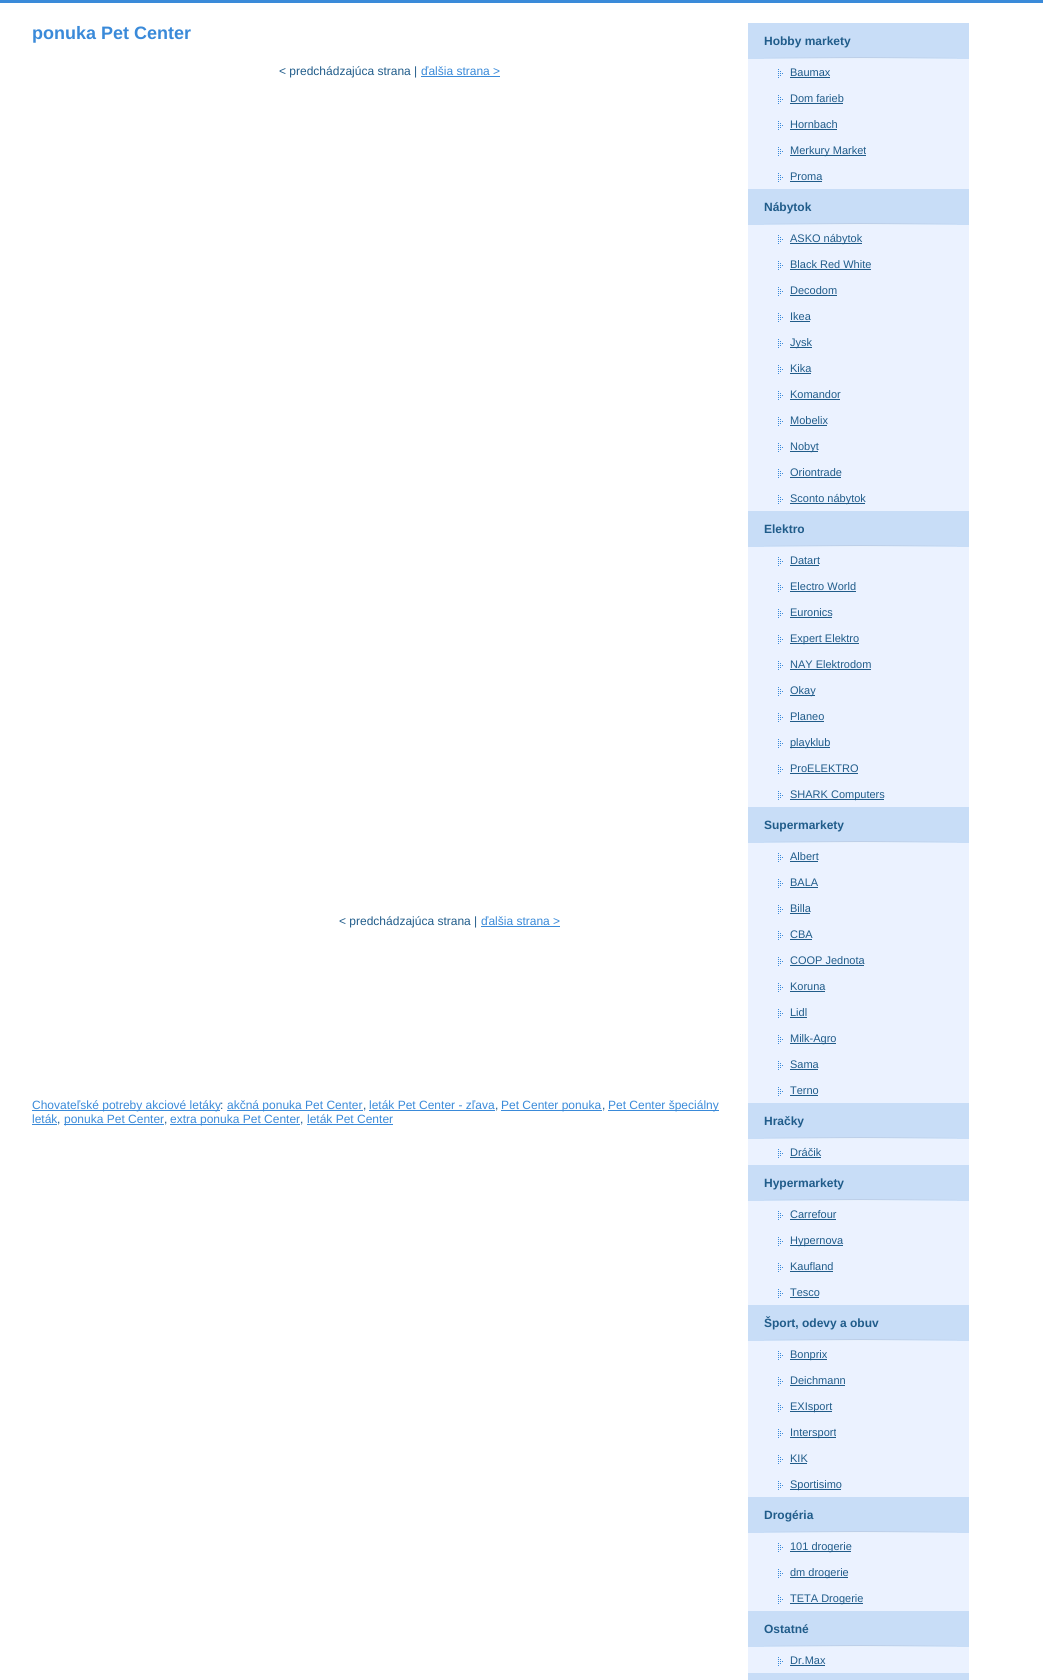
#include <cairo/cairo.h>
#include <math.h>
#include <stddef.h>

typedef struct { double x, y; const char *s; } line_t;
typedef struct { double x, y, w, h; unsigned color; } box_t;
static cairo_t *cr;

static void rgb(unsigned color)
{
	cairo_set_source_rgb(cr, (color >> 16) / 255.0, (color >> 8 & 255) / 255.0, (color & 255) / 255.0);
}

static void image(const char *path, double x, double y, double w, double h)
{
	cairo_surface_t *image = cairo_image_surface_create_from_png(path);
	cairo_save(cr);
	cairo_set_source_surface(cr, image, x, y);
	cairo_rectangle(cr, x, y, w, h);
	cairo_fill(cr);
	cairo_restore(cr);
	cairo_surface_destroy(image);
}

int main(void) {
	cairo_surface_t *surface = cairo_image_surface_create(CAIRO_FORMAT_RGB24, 1043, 1680);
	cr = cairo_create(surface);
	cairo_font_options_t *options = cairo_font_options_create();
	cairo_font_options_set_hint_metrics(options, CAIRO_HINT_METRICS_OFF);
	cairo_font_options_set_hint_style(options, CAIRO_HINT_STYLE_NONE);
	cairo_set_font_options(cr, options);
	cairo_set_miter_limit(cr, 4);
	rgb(0xffffff);
	cairo_paint(cr);
	{
		static const box_t items[] = {
			{0, 0, 1043, 3, 0x3a8ad9},
			{421, 76, 79, 1, 0x3a8ad9},
			{481, 926, 79, 1, 0x3a8ad9},
			{32, 1110, 188, 1, 0x3a8ad9},
			{227, 1110, 136, 1, 0x3a8ad9},
			{369, 1110, 126, 1, 0x3a8ad9},
			{501, 1110, 101, 1, 0x3a8ad9},
			{608, 1110, 111, 1, 0x3a8ad9},
			{32, 1124, 25, 1, 0x3a8ad9},
			{64, 1124, 100, 1, 0x3a8ad9},
			{170, 1124, 130, 1, 0x3a8ad9},
			{307, 1124, 86, 1, 0x3a8ad9},
			{748, 59, 221, 1614, 0xebf2ff},
			{748, 23, 221, 36, 0xc8ddf7},
		};
		for (size_t i = 0; i < sizeof items / sizeof *items; i++) {
			rgb(items[i].color);
			cairo_rectangle(cr, items[i].x, items[i].y, items[i].w, items[i].h);
			cairo_fill(cr);
		}
	}
	image("img/1.png", 764, 57, 193, 2);
	image("img/2.png", 778, 69, 5, 9);
	rgb(0x205c8a);
	cairo_rectangle(cr, 790, 77, 40, 1);
	cairo_fill(cr);
	image("img/2.png", 778, 95, 5, 9);
	cairo_rectangle(cr, 790, 103, 53, 1);
	cairo_fill(cr);
	image("img/2.png", 778, 121, 5, 9);
	cairo_rectangle(cr, 790, 129, 47, 1);
	cairo_fill(cr);
	image("img/2.png", 778, 147, 5, 9);
	cairo_rectangle(cr, 790, 155, 76, 1);
	cairo_fill(cr);
	image("img/2.png", 778, 173, 5, 9);
	cairo_rectangle(cr, 790, 181, 32, 1);
	cairo_fill(cr);
	rgb(0xc8ddf7);
	cairo_rectangle(cr, 748, 189, 221, 36);
	cairo_fill(cr);
	image("img/1.png", 764, 223, 193, 2);
	image("img/2.png", 778, 235, 5, 9);
	rgb(0x205c8a);
	cairo_rectangle(cr, 790, 243, 72, 1);
	cairo_fill(cr);
	image("img/2.png", 778, 261, 5, 9);
	cairo_rectangle(cr, 790, 269, 81, 1);
	cairo_fill(cr);
	image("img/2.png", 778, 287, 5, 9);
	cairo_rectangle(cr, 790, 295, 47, 1);
	cairo_fill(cr);
	image("img/2.png", 778, 313, 5, 9);
	cairo_rectangle(cr, 790, 321, 20, 1);
	cairo_fill(cr);
	image("img/2.png", 778, 339, 5, 9);
	cairo_rectangle(cr, 790, 347, 22, 1);
	cairo_fill(cr);
	image("img/2.png", 778, 365, 5, 9);
	cairo_rectangle(cr, 790, 373, 21, 1);
	cairo_fill(cr);
	image("img/2.png", 778, 391, 5, 9);
	cairo_rectangle(cr, 790, 399, 50, 1);
	cairo_fill(cr);
	image("img/2.png", 778, 417, 5, 9);
	cairo_rectangle(cr, 790, 425, 37, 1);
	cairo_fill(cr);
	image("img/2.png", 778, 443, 5, 9);
	cairo_rectangle(cr, 790, 451, 28, 1);
	cairo_fill(cr);
	image("img/2.png", 778, 469, 5, 9);
	cairo_rectangle(cr, 790, 477, 51, 1);
	cairo_fill(cr);
	image("img/2.png", 778, 495, 5, 9);
	cairo_rectangle(cr, 790, 503, 75, 1);
	cairo_fill(cr);
	rgb(0xc8ddf7);
	cairo_rectangle(cr, 748, 511, 221, 36);
	cairo_fill(cr);
	image("img/1.png", 764, 545, 193, 2);
	image("img/2.png", 778, 557, 5, 9);
	rgb(0x205c8a);
	cairo_rectangle(cr, 790, 565, 29, 1);
	cairo_fill(cr);
	image("img/2.png", 778, 583, 5, 9);
	cairo_rectangle(cr, 790, 591, 66, 1);
	cairo_fill(cr);
	image("img/2.png", 778, 609, 5, 9);
	cairo_rectangle(cr, 790, 617, 42, 1);
	cairo_fill(cr);
	image("img/2.png", 778, 635, 5, 9);
	cairo_rectangle(cr, 790, 643, 69, 1);
	cairo_fill(cr);
	image("img/2.png", 778, 661, 5, 9);
	cairo_rectangle(cr, 790, 669, 81, 1);
	cairo_fill(cr);
	image("img/2.png", 778, 687, 5, 9);
	cairo_rectangle(cr, 790, 695, 25, 1);
	cairo_fill(cr);
	image("img/2.png", 778, 713, 5, 9);
	cairo_rectangle(cr, 790, 721, 34, 1);
	cairo_fill(cr);
	image("img/2.png", 778, 739, 5, 9);
	cairo_rectangle(cr, 790, 747, 40, 1);
	cairo_fill(cr);
	image("img/2.png", 778, 765, 5, 9);
	cairo_rectangle(cr, 790, 773, 68, 1);
	cairo_fill(cr);
	image("img/2.png", 778, 791, 5, 9);
	cairo_rectangle(cr, 790, 799, 94, 1);
	cairo_fill(cr);
	rgb(0xc8ddf7);
	cairo_rectangle(cr, 748, 807, 221, 36);
	cairo_fill(cr);
	image("img/1.png", 764, 841, 193, 2);
	image("img/2.png", 778, 853, 5, 9);
	rgb(0x205c8a);
	cairo_rectangle(cr, 790, 861, 28, 1);
	cairo_fill(cr);
	image("img/2.png", 778, 879, 5, 9);
	cairo_rectangle(cr, 790, 887, 28, 1);
	cairo_fill(cr);
	image("img/2.png", 778, 905, 5, 9);
	cairo_rectangle(cr, 790, 913, 20, 1);
	cairo_fill(cr);
	image("img/2.png", 778, 931, 5, 9);
	cairo_rectangle(cr, 790, 939, 22, 1);
	cairo_fill(cr);
	image("img/2.png", 778, 957, 5, 9);
	cairo_rectangle(cr, 790, 965, 74, 1);
	cairo_fill(cr);
	image("img/2.png", 778, 983, 5, 9);
	cairo_rectangle(cr, 790, 991, 35, 1);
	cairo_fill(cr);
	image("img/2.png", 778, 1009, 5, 9);
	cairo_rectangle(cr, 790, 1017, 17, 1);
	cairo_fill(cr);
	image("img/2.png", 778, 1035, 5, 9);
	cairo_rectangle(cr, 790, 1043, 46, 1);
	cairo_fill(cr);
	image("img/2.png", 778, 1061, 5, 9);
	cairo_rectangle(cr, 790, 1069, 28, 1);
	cairo_fill(cr);
	image("img/2.png", 778, 1087, 5, 9);
	cairo_rectangle(cr, 790, 1095, 28, 1);
	cairo_fill(cr);
	rgb(0xc8ddf7);
	cairo_rectangle(cr, 748, 1103, 221, 36);
	cairo_fill(cr);
	image("img/1.png", 764, 1137, 193, 2);
	image("img/2.png", 778, 1149, 5, 9);
	rgb(0x205c8a);
	cairo_rectangle(cr, 790, 1157, 31, 1);
	cairo_fill(cr);
	rgb(0xc8ddf7);
	cairo_rectangle(cr, 748, 1165, 221, 36);
	cairo_fill(cr);
	image("img/1.png", 764, 1199, 193, 2);
	image("img/2.png", 778, 1211, 5, 9);
	rgb(0x205c8a);
	cairo_rectangle(cr, 790, 1219, 46, 1);
	cairo_fill(cr);
	image("img/2.png", 778, 1237, 5, 9);
	cairo_rectangle(cr, 790, 1245, 53, 1);
	cairo_fill(cr);
	image("img/2.png", 778, 1263, 5, 9);
	cairo_rectangle(cr, 790, 1271, 43, 1);
	cairo_fill(cr);
	image("img/2.png", 778, 1289, 5, 9);
	cairo_rectangle(cr, 790, 1297, 29, 1);
	cairo_fill(cr);
	rgb(0xc8ddf7);
	cairo_rectangle(cr, 748, 1305, 221, 36);
	cairo_fill(cr);
	image("img/1.png", 764, 1339, 193, 2);
	image("img/2.png", 778, 1351, 5, 9);
	rgb(0x205c8a);
	cairo_rectangle(cr, 790, 1359, 37, 1);
	cairo_fill(cr);
	image("img/2.png", 778, 1377, 5, 9);
	cairo_rectangle(cr, 790, 1385, 55, 1);
	cairo_fill(cr);
	image("img/2.png", 778, 1403, 5, 9);
	cairo_rectangle(cr, 790, 1411, 42, 1);
	cairo_fill(cr);
	image("img/2.png", 778, 1429, 5, 9);
	cairo_rectangle(cr, 790, 1437, 46, 1);
	cairo_fill(cr);
	image("img/2.png", 778, 1455, 5, 9);
	cairo_rectangle(cr, 790, 1463, 17, 1);
	cairo_fill(cr);
	image("img/2.png", 778, 1481, 5, 9);
	cairo_rectangle(cr, 790, 1489, 51, 1);
	cairo_fill(cr);
	rgb(0xc8ddf7);
	cairo_rectangle(cr, 748, 1497, 221, 36);
	cairo_fill(cr);
	image("img/1.png", 764, 1531, 193, 2);
	image("img/2.png", 778, 1543, 5, 9);
	rgb(0x205c8a);
	cairo_rectangle(cr, 790, 1551, 61, 1);
	cairo_fill(cr);
	image("img/2.png", 778, 1569, 5, 9);
	cairo_rectangle(cr, 790, 1577, 58, 1);
	cairo_fill(cr);
	image("img/2.png", 778, 1595, 5, 9);
	cairo_rectangle(cr, 790, 1603, 73, 1);
	cairo_fill(cr);
	rgb(0xc8ddf7);
	cairo_rectangle(cr, 748, 1611, 221, 36);
	cairo_fill(cr);
	image("img/1.png", 764, 1645, 193, 2);
	image("img/2.png", 778, 1657, 5, 9);
	rgb(0x205c8a);
	cairo_rectangle(cr, 790, 1665, 35, 1);
	cairo_fill(cr);
	rgb(0xc8ddf7);
	cairo_rectangle(cr, 748, 1673, 221, 7);
	cairo_fill(cr);
	cairo_select_font_face(cr, "Liberation Sans", CAIRO_FONT_SLANT_NORMAL, CAIRO_FONT_WEIGHT_BOLD);
	cairo_set_font_size(cr, 18);
	rgb(0x3a8ad9);
	cairo_move_to(cr, 32, 39);
	cairo_show_text(cr, "ponuka Pet Center");
	cairo_select_font_face(cr, "Liberation Sans", CAIRO_FONT_SLANT_NORMAL, CAIRO_FONT_WEIGHT_NORMAL);
	cairo_set_font_size(cr, 12);
	rgb(0x205c8a);
	cairo_move_to(cr, 279, 75);
	cairo_show_text(cr, "< predchádzajúca strana |");
	rgb(0x3a8ad9);
	cairo_move_to(cr, 421, 75);
	cairo_show_text(cr, "ďalšia strana >");
	rgb(0x205c8a);
	cairo_move_to(cr, 339, 925);
	cairo_show_text(cr, "< predchádzajúca strana |");
	rgb(0x3a8ad9);
	cairo_move_to(cr, 481, 925);
	cairo_show_text(cr, "ďalšia strana >");
	cairo_move_to(cr, 32, 1109);
	cairo_show_text(cr, "Chovateľské potreby akciové letáky");
	rgb(0x205c8a);
	cairo_move_to(cr, 220, 1109);
	cairo_show_text(cr, ":");
	rgb(0x3a8ad9);
	cairo_move_to(cr, 227, 1109);
	cairo_show_text(cr, "akčná ponuka Pet Center");
	rgb(0x205c8a);
	cairo_move_to(cr, 363, 1109);
	cairo_show_text(cr, ",");
	rgb(0x3a8ad9);
	cairo_move_to(cr, 369, 1109);
	cairo_show_text(cr, "leták Pet Center - zľava");
	rgb(0x205c8a);
	cairo_move_to(cr, 495, 1109);
	cairo_show_text(cr, ",");
	rgb(0x3a8ad9);
	cairo_move_to(cr, 501, 1109);
	cairo_show_text(cr, "Pet Center ponuka");
	rgb(0x205c8a);
	cairo_move_to(cr, 602, 1109);
	cairo_show_text(cr, ",");
	rgb(0x3a8ad9);
	cairo_move_to(cr, 608, 1109);
	cairo_show_text(cr, "Pet Center špeciálny");
	cairo_move_to(cr, 32, 1123);
	cairo_show_text(cr, "leták");
	rgb(0x205c8a);
	cairo_move_to(cr, 57, 1123);
	cairo_show_text(cr, ",");
	rgb(0x3a8ad9);
	cairo_move_to(cr, 64, 1123);
	cairo_show_text(cr, "ponuka Pet Center");
	rgb(0x205c8a);
	cairo_move_to(cr, 164, 1123);
	cairo_show_text(cr, ",");
	rgb(0x3a8ad9);
	cairo_move_to(cr, 170, 1123);
	cairo_show_text(cr, "extra ponuka Pet Center");
	rgb(0x205c8a);
	cairo_move_to(cr, 300, 1123);
	cairo_show_text(cr, ",");
	rgb(0x3a8ad9);
	cairo_move_to(cr, 307, 1123);
	cairo_show_text(cr, "leták Pet Center");
	cairo_select_font_face(cr, "Liberation Sans", CAIRO_FONT_SLANT_NORMAL, CAIRO_FONT_WEIGHT_BOLD);
	rgb(0x205c8a);
	cairo_move_to(cr, 764, 45);
	cairo_show_text(cr, "Hobby markety");
	cairo_select_font_face(cr, "Liberation Sans", CAIRO_FONT_SLANT_NORMAL, CAIRO_FONT_WEIGHT_NORMAL);
	cairo_set_font_size(cr, 11);
	{
		static const line_t items[] = {
			{790, 76, "Baumax"},
			{790, 102, "Dom farieb"},
			{790, 128, "Hornbach"},
			{790, 154, "Merkury Market"},
			{790, 180, "Proma"},
		};
		for (size_t i = 0; i < sizeof items / sizeof *items; i++) {
			cairo_move_to(cr, items[i].x, items[i].y);
			cairo_show_text(cr, items[i].s);
		}
	}
	cairo_select_font_face(cr, "Liberation Sans", CAIRO_FONT_SLANT_NORMAL, CAIRO_FONT_WEIGHT_BOLD);
	cairo_set_font_size(cr, 12);
	cairo_move_to(cr, 764, 211);
	cairo_show_text(cr, "Nábytok");
	cairo_select_font_face(cr, "Liberation Sans", CAIRO_FONT_SLANT_NORMAL, CAIRO_FONT_WEIGHT_NORMAL);
	cairo_set_font_size(cr, 11);
	{
		static const line_t items[] = {
			{790, 242, "ASKO nábytok"},
			{790, 268, "Black Red White"},
			{790, 294, "Decodom"},
			{790, 320, "Ikea"},
			{790, 346, "Jysk"},
			{790, 372, "Kika"},
			{790, 398, "Komandor"},
			{790, 424, "Mobelix"},
			{790, 450, "Nobyt"},
			{790, 476, "Oriontrade"},
			{790, 502, "Sconto nábytok"},
		};
		for (size_t i = 0; i < sizeof items / sizeof *items; i++) {
			cairo_move_to(cr, items[i].x, items[i].y);
			cairo_show_text(cr, items[i].s);
		}
	}
	cairo_select_font_face(cr, "Liberation Sans", CAIRO_FONT_SLANT_NORMAL, CAIRO_FONT_WEIGHT_BOLD);
	cairo_set_font_size(cr, 12);
	cairo_move_to(cr, 764, 533);
	cairo_show_text(cr, "Elektro");
	cairo_select_font_face(cr, "Liberation Sans", CAIRO_FONT_SLANT_NORMAL, CAIRO_FONT_WEIGHT_NORMAL);
	cairo_set_font_size(cr, 11);
	{
		static const line_t items[] = {
			{790, 564, "Datart"},
			{790, 590, "Electro World"},
			{790, 616, "Euronics"},
			{790, 642, "Expert Elektro"},
			{790, 668, "NAY Elektrodom"},
			{790, 694, "Okay"},
			{790, 720, "Planeo"},
			{790, 746, "playklub"},
			{790, 772, "ProELEKTRO"},
			{790, 798, "SHARK Computers"},
		};
		for (size_t i = 0; i < sizeof items / sizeof *items; i++) {
			cairo_move_to(cr, items[i].x, items[i].y);
			cairo_show_text(cr, items[i].s);
		}
	}
	cairo_select_font_face(cr, "Liberation Sans", CAIRO_FONT_SLANT_NORMAL, CAIRO_FONT_WEIGHT_BOLD);
	cairo_set_font_size(cr, 12);
	cairo_move_to(cr, 764, 829);
	cairo_show_text(cr, "Supermarkety");
	cairo_select_font_face(cr, "Liberation Sans", CAIRO_FONT_SLANT_NORMAL, CAIRO_FONT_WEIGHT_NORMAL);
	cairo_set_font_size(cr, 11);
	{
		static const line_t items[] = {
			{790, 860, "Albert"},
			{790, 886, "BALA"},
			{790, 912, "Billa"},
			{790, 938, "CBA"},
			{790, 964, "COOP Jednota"},
			{790, 990, "Koruna"},
			{790, 1016, "Lidl"},
			{790, 1042, "Milk-Agro"},
			{790, 1068, "Sama"},
			{790, 1094, "Terno"},
		};
		for (size_t i = 0; i < sizeof items / sizeof *items; i++) {
			cairo_move_to(cr, items[i].x, items[i].y);
			cairo_show_text(cr, items[i].s);
		}
	}
	cairo_select_font_face(cr, "Liberation Sans", CAIRO_FONT_SLANT_NORMAL, CAIRO_FONT_WEIGHT_BOLD);
	cairo_set_font_size(cr, 12);
	cairo_move_to(cr, 764, 1125);
	cairo_show_text(cr, "Hračky");
	cairo_select_font_face(cr, "Liberation Sans", CAIRO_FONT_SLANT_NORMAL, CAIRO_FONT_WEIGHT_NORMAL);
	cairo_set_font_size(cr, 11);
	cairo_move_to(cr, 790, 1156);
	cairo_show_text(cr, "Dráčik");
	cairo_select_font_face(cr, "Liberation Sans", CAIRO_FONT_SLANT_NORMAL, CAIRO_FONT_WEIGHT_BOLD);
	cairo_set_font_size(cr, 12);
	cairo_move_to(cr, 764, 1187);
	cairo_show_text(cr, "Hypermarkety");
	cairo_select_font_face(cr, "Liberation Sans", CAIRO_FONT_SLANT_NORMAL, CAIRO_FONT_WEIGHT_NORMAL);
	cairo_set_font_size(cr, 11);
	{
		static const line_t items[] = {
			{790, 1218, "Carrefour"},
			{790, 1244, "Hypernova"},
			{790, 1270, "Kaufland"},
			{790, 1296, "Tesco"},
		};
		for (size_t i = 0; i < sizeof items / sizeof *items; i++) {
			cairo_move_to(cr, items[i].x, items[i].y);
			cairo_show_text(cr, items[i].s);
		}
	}
	cairo_select_font_face(cr, "Liberation Sans", CAIRO_FONT_SLANT_NORMAL, CAIRO_FONT_WEIGHT_BOLD);
	cairo_set_font_size(cr, 12);
	cairo_move_to(cr, 764, 1327);
	cairo_show_text(cr, "Šport, odevy a obuv");
	cairo_select_font_face(cr, "Liberation Sans", CAIRO_FONT_SLANT_NORMAL, CAIRO_FONT_WEIGHT_NORMAL);
	cairo_set_font_size(cr, 11);
	{
		static const line_t items[] = {
			{790, 1358, "Bonprix"},
			{790, 1384, "Deichmann"},
			{790, 1410, "EXIsport"},
			{790, 1436, "Intersport"},
			{790, 1462, "KIK"},
			{790, 1488, "Sportisimo"},
		};
		for (size_t i = 0; i < sizeof items / sizeof *items; i++) {
			cairo_move_to(cr, items[i].x, items[i].y);
			cairo_show_text(cr, items[i].s);
		}
	}
	cairo_select_font_face(cr, "Liberation Sans", CAIRO_FONT_SLANT_NORMAL, CAIRO_FONT_WEIGHT_BOLD);
	cairo_set_font_size(cr, 12);
	cairo_move_to(cr, 764, 1519);
	cairo_show_text(cr, "Drogéria");
	cairo_select_font_face(cr, "Liberation Sans", CAIRO_FONT_SLANT_NORMAL, CAIRO_FONT_WEIGHT_NORMAL);
	cairo_set_font_size(cr, 11);
	{
		static const line_t items[] = {
			{790, 1550, "101 drogerie"},
			{790, 1576, "dm drogerie"},
			{790, 1602, "TETA Drogerie"},
		};
		for (size_t i = 0; i < sizeof items / sizeof *items; i++) {
			cairo_move_to(cr, items[i].x, items[i].y);
			cairo_show_text(cr, items[i].s);
		}
	}
	cairo_select_font_face(cr, "Liberation Sans", CAIRO_FONT_SLANT_NORMAL, CAIRO_FONT_WEIGHT_BOLD);
	cairo_set_font_size(cr, 12);
	cairo_move_to(cr, 764, 1633);
	cairo_show_text(cr, "Ostatné");
	cairo_select_font_face(cr, "Liberation Sans", CAIRO_FONT_SLANT_NORMAL, CAIRO_FONT_WEIGHT_NORMAL);
	cairo_set_font_size(cr, 11);
	cairo_move_to(cr, 790, 1664);
	cairo_show_text(cr, "Dr.Max");
	cairo_surface_write_to_png(surface, "page.png");
	cairo_font_options_destroy(options);
	cairo_destroy(cr);
	cairo_surface_destroy(surface);
	return 0;
}
